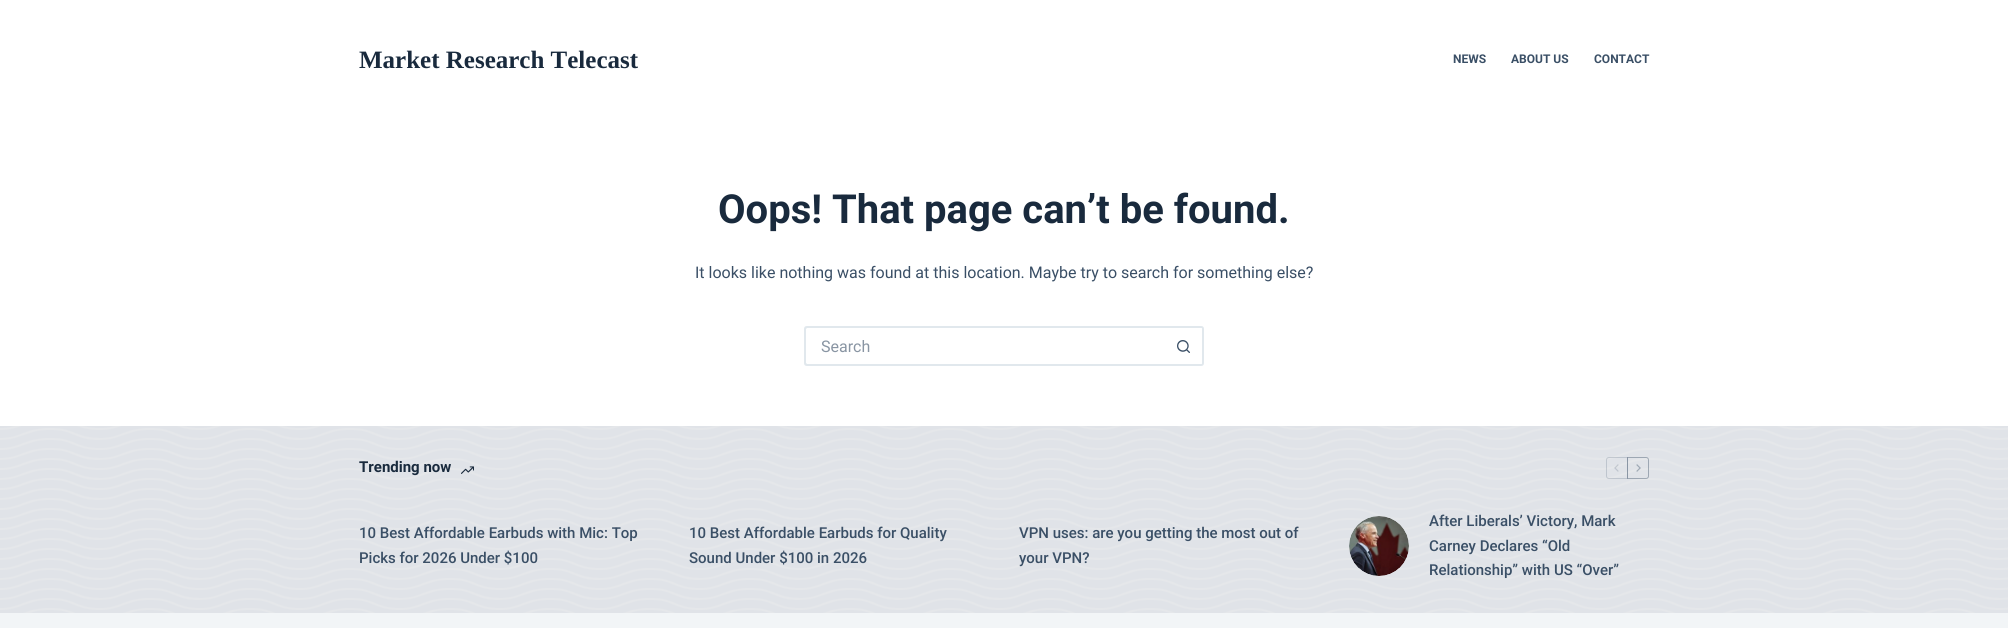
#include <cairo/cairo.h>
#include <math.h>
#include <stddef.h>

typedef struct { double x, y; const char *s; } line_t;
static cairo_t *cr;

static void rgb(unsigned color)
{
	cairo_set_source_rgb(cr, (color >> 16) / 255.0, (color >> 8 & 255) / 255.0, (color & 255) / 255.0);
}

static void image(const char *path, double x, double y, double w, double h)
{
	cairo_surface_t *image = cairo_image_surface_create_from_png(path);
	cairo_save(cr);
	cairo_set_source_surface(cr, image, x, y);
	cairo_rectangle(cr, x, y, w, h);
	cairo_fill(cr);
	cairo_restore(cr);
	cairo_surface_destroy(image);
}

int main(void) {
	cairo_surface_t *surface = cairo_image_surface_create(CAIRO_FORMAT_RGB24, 2008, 628);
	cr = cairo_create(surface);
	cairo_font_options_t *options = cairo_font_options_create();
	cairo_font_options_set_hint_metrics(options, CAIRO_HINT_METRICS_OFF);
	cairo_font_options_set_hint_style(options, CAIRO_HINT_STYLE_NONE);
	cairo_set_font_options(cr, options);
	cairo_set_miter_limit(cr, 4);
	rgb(0xffffff);
	cairo_paint(cr);
	rgb(0xe1e8ed);
	cairo_set_fill_rule(cr, CAIRO_FILL_RULE_EVEN_ODD);
	cairo_new_path(cr);
	cairo_move_to(cr, 807, 326);
	cairo_line_to(cr, 1164, 326);
	cairo_line_to(cr, 1164, 366);
	cairo_line_to(cr, 807, 366);
	cairo_curve_to(cr, 805, 366, 804, 365, 804, 363);
	cairo_line_to(cr, 804, 329);
	cairo_curve_to(cr, 804, 327, 805, 326, 807, 326);
	cairo_close_path(cr);
	cairo_move_to(cr, 807, 328);
	cairo_line_to(cr, 1164, 328);
	cairo_line_to(cr, 1164, 364);
	cairo_line_to(cr, 807, 364);
	cairo_line_to(cr, 806, 363);
	cairo_line_to(cr, 806, 329);
	cairo_close_path(cr);
	cairo_fill(cr);
	cairo_new_path(cr);
	cairo_move_to(cr, 1164, 326);
	cairo_line_to(cr, 1201, 326);
	cairo_curve_to(cr, 1203, 326, 1204, 327, 1204, 329);
	cairo_line_to(cr, 1204, 363);
	cairo_curve_to(cr, 1204, 365, 1203, 366, 1201, 366);
	cairo_line_to(cr, 1164, 366);
	cairo_close_path(cr);
	cairo_move_to(cr, 1164, 328);
	cairo_line_to(cr, 1201, 328);
	cairo_curve_to(cr, 1202, 328, 1202, 328, 1202, 329);
	cairo_line_to(cr, 1202, 363);
	cairo_curve_to(cr, 1202, 364, 1202, 364, 1201, 364);
	cairo_line_to(cr, 1164, 364);
	cairo_close_path(cr);
	cairo_fill(cr);
	image("img/1.png", 1177, 340, 13, 13);
	rgb(0xe0e3e8);
	cairo_rectangle(cr, 0, 426, 2008, 187);
	cairo_fill(cr);
	image("img/2.png", 0, 426, 2008, 187);
	image("img/3.png", 461, 466, 13, 8);
	cairo_new_path(cr);
	cairo_move_to(cr, 1609, 457.5);
	cairo_line_to(cr, 1627.5, 457.5);
	cairo_line_to(cr, 1627.5, 478.5);
	cairo_line_to(cr, 1609, 478.5);
	cairo_curve_to(cr, 1607.5, 478.5, 1606.5, 477.5, 1606.5, 476);
	cairo_line_to(cr, 1606.5, 460);
	cairo_curve_to(cr, 1606.5, 458.5, 1607.5, 457.5, 1609, 457.5);
	cairo_close_path(cr);
	cairo_set_source_rgba(cr, 0.227, 0.31, 0.4, 0.2);
	cairo_set_line_width(cr, 1);
	cairo_stroke(cr);
	image("img/4.png", 1614, 464, 5, 8);
	cairo_new_path(cr);
	cairo_move_to(cr, 1627.5, 457.5);
	cairo_line_to(cr, 1646, 457.5);
	cairo_curve_to(cr, 1647.5, 457.5, 1648.5, 458.5, 1648.5, 460);
	cairo_line_to(cr, 1648.5, 476);
	cairo_curve_to(cr, 1648.5, 477.5, 1647.5, 478.5, 1646, 478.5);
	cairo_line_to(cr, 1627.5, 478.5);
	cairo_close_path(cr);
	cairo_set_source_rgba(cr, 0.227, 0.31, 0.4, 0.4);
	cairo_stroke(cr);
	image("img/5.png", 1636, 464, 5, 8);
	image("img/6.png", 1349, 516, 60, 60);
	rgb(0xf2f5f7);
	cairo_rectangle(cr, 0, 613, 2008, 15);
	cairo_fill(cr);
	cairo_select_font_face(cr, "Liberation Serif", CAIRO_FONT_SLANT_NORMAL, CAIRO_FONT_WEIGHT_BOLD);
	cairo_set_font_size(cr, 25);
	rgb(0x192a3d);
	cairo_move_to(cr, 359, 68);
	cairo_show_text(cr, "Market Research Telecast");
	cairo_select_font_face(cr, "Roboto", CAIRO_FONT_SLANT_NORMAL, CAIRO_FONT_WEIGHT_BOLD);
	cairo_set_font_size(cr, 12);
	rgb(0x3a4f66);
	{
		static const line_t items[] = {
			{1453, 63, "NEWS"},
			{1511, 63, "ABOUT US"},
			{1594, 63, "CONTACT"},
		};
		for (size_t i = 0; i < sizeof items / sizeof *items; i++) {
			cairo_move_to(cr, items[i].x, items[i].y);
			cairo_show_text(cr, items[i].s);
		}
	}
	cairo_set_font_size(cr, 40);
	rgb(0x192a3d);
	cairo_move_to(cr, 718, 223);
	cairo_show_text(cr, "Oops! That page can’t be found.");
	cairo_select_font_face(cr, "Roboto", CAIRO_FONT_SLANT_NORMAL, CAIRO_FONT_WEIGHT_NORMAL);
	cairo_set_font_size(cr, 16);
	rgb(0x3a4f66);
	cairo_move_to(cr, 695, 278);
	cairo_show_text(cr, "It looks like nothing was found at this location. Maybe try to search for something else?");
	rgb(0x8995a3);
	cairo_move_to(cr, 821, 352);
	cairo_show_text(cr, "Search");
	cairo_select_font_face(cr, "Roboto", CAIRO_FONT_SLANT_NORMAL, CAIRO_FONT_WEIGHT_BOLD);
	cairo_set_font_size(cr, 15);
	rgb(0x192a3d);
	cairo_move_to(cr, 359, 472);
	cairo_show_text(cr, "Trending now");
	cairo_select_font_face(cr, "Roboto Medium", CAIRO_FONT_SLANT_NORMAL, CAIRO_FONT_WEIGHT_NORMAL);
	rgb(0x3a4f66);
	{
		static const line_t items[] = {
			{359, 538, "10 Best Affordable Earbuds with Mic: Top"},
			{359, 563, "Picks for 2026 Under $100"},
			{689, 538, "10 Best Affordable Earbuds for Quality"},
			{689, 563, "Sound Under $100 in 2026"},
			{1019, 538, "VPN uses: are you getting the most out of"},
			{1019, 563, "your VPN?"},
			{1429, 526, "After Liberals’ Victory, Mark"},
			{1429, 551, "Carney Declares “Old"},
			{1429, 575, "Relationship” with US “Over”"},
		};
		for (size_t i = 0; i < sizeof items / sizeof *items; i++) {
			cairo_move_to(cr, items[i].x, items[i].y);
			cairo_show_text(cr, items[i].s);
		}
	}
	cairo_surface_write_to_png(surface, "page.png");
	cairo_font_options_destroy(options);
	cairo_destroy(cr);
	cairo_surface_destroy(surface);
	return 0;
}
